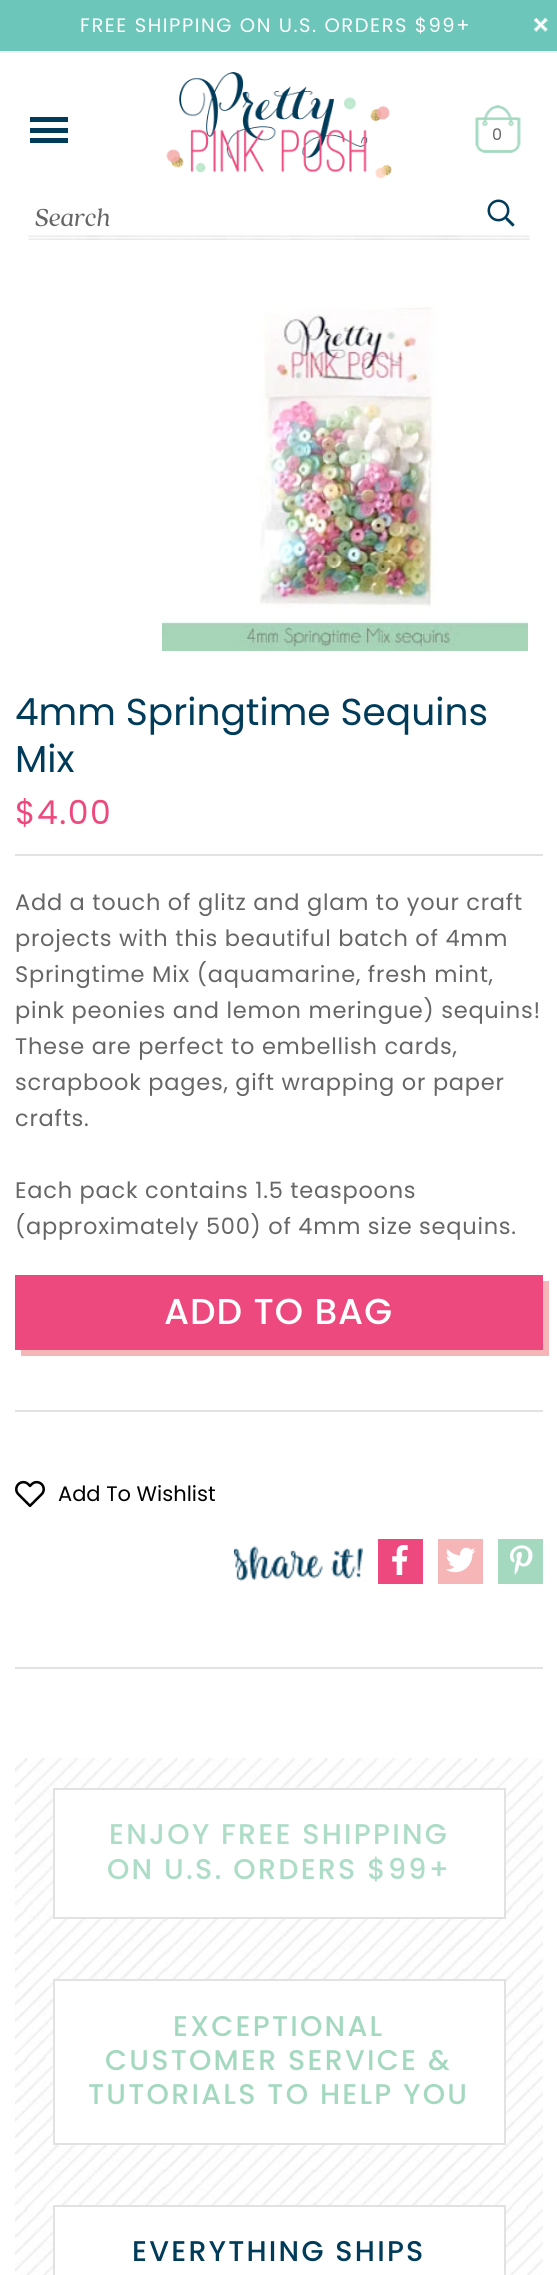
#include <cairo/cairo.h>
#include <math.h>
#include <stddef.h>

typedef struct { double x, y; const char *s; } line_t;
typedef struct { double x, y, w, h; unsigned color; } box_t;
static cairo_t *cr;

static void rgb(unsigned color)
{
	cairo_set_source_rgb(cr, (color >> 16) / 255.0, (color >> 8 & 255) / 255.0, (color & 255) / 255.0);
}

static void tracked(double x, double y, const char *s, double letter, double word)
{
	cairo_move_to(cr, x, y);
	while (*s) {
		char ch[5] = {0};
		int n = 0;
		do ch[n++] = *s++; while ((*s & 0xC0) == 0x80);
		cairo_show_text(cr, ch);
		cairo_rel_move_to(cr, letter + word * (*ch == ' '), 0);
	}
}

static void image(const char *path, double x, double y, double w, double h)
{
	cairo_surface_t *image = cairo_image_surface_create_from_png(path);
	cairo_save(cr);
	cairo_set_source_surface(cr, image, x, y);
	cairo_rectangle(cr, x, y, w, h);
	cairo_fill(cr);
	cairo_restore(cr);
	cairo_surface_destroy(image);
}

int main(void) {
	cairo_surface_t *surface = cairo_image_surface_create(CAIRO_FORMAT_RGB24, 557, 2275);
	cr = cairo_create(surface);
	cairo_font_options_t *options = cairo_font_options_create();
	cairo_font_options_set_hint_metrics(options, CAIRO_HINT_METRICS_OFF);
	cairo_font_options_set_hint_style(options, CAIRO_HINT_STYLE_NONE);
	cairo_set_font_options(cr, options);
	cairo_set_miter_limit(cr, 4);
	rgb(0xffffff);
	cairo_paint(cr);
	rgb(0x6dc6ba);
	cairo_rectangle(cr, 0, 0, 557, 51);
	cairo_fill(cr);
	image("img/1.png", 534, 18, 14, 14);
	{
		static const box_t items[] = {
			{0, 51, 557, 2, 0xf3f3f3},
			{30, 128, 38, 5, 0x003c5a},
			{30, 117, 38, 5, 0x003c5a},
			{30, 138, 38, 5, 0x003c5a},
		};
		for (size_t i = 0; i < sizeof items / sizeof *items; i++) {
			rgb(items[i].color);
			cairo_rectangle(cr, items[i].x, items[i].y, items[i].w, items[i].h);
			cairo_fill(cr);
		}
	}
	image("img/2.png", 166, 72, 226, 107);
	image("img/3.png", 475, 105, 46, 48);
	image("img/4.png", 28, 235, 502, 5);
	image("img/5.png", 487, 199, 28, 28);
	image("img/6.png", 162, 306, 366, 345);
	rgb(0xe2e2e2);
	cairo_rectangle(cr, 15, 854, 528, 2);
	cairo_fill(cr);
	rgb(0xf6b6b7);
	cairo_new_path(cr);
	cairo_move_to(cr, 21, 1350);
	cairo_line_to(cr, 21, 1356);
	cairo_line_to(cr, 549, 1356);
	cairo_line_to(cr, 549, 1281);
	cairo_line_to(cr, 543, 1281);
	cairo_line_to(cr, 543, 1350);
	cairo_close_path(cr);
	cairo_fill(cr);
	rgb(0xed497e);
	cairo_rectangle(cr, 15, 1275, 528, 75);
	cairo_fill(cr);
	rgb(0xe2e2e2);
	cairo_rectangle(cr, 15, 1410, 528, 2);
	cairo_fill(cr);
	image("img/7.png", 15, 1480, 30, 28);
	image("img/8.png", 234, 1546, 129, 35);
	rgb(0xed497e);
	cairo_rectangle(cr, 378, 1539, 45, 45);
	cairo_fill(cr);
	image("img/9.png", 392, 1545, 16, 30);
	rgb(0xf6b6b7);
	cairo_rectangle(cr, 438, 1539, 45, 45);
	cairo_fill(cr);
	image("img/10.png", 445, 1547, 31, 26);
	rgb(0xa4d9c0);
	cairo_rectangle(cr, 498, 1539, 45, 45);
	cairo_fill(cr);
	image("img/11.png", 510, 1545, 23, 30);
	rgb(0xe2e2e2);
	cairo_rectangle(cr, 15, 1667, 528, 2);
	cairo_fill(cr);
	image("img/12.png", 15, 1758, 528, 517);
	rgb(0xffffff);
	cairo_rectangle(cr, 54, 1789, 451, 129);
	cairo_fill_preserve(cr);
	rgb(0xe2e2e2);
	cairo_stroke(cr);
	rgb(0xffffff);
	cairo_rectangle(cr, 54, 1980, 451, 164);
	cairo_fill_preserve(cr);
	rgb(0xe2e2e2);
	cairo_stroke(cr);
	rgb(0xffffff);
	cairo_rectangle(cr, 54, 2206, 451, 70);
	cairo_fill_preserve(cr);
	rgb(0xe2e2e2);
	cairo_stroke(cr);
	cairo_select_font_face(cr, "Poppins", CAIRO_FONT_SLANT_NORMAL, CAIRO_FONT_WEIGHT_NORMAL);
	cairo_set_font_size(cr, 19.5);
	rgb(0xffffff);
	tracked(80, 32, "FREE SHIPPING ON U.S. ORDERS $99+", 1.55, 0);
	cairo_set_font_size(cr, 16);
	rgb(0x666666);
	cairo_move_to(cr, 492, 140);
	cairo_show_text(cr, "0");
	cairo_select_font_face(cr, "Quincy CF", CAIRO_FONT_SLANT_ITALIC, CAIRO_FONT_WEIGHT_NORMAL);
	cairo_set_font_size(cr, 27);
	cairo_move_to(cr, 35, 226);
	cairo_show_text(cr, "Search");
	cairo_select_font_face(cr, "Poppins", CAIRO_FONT_SLANT_NORMAL, CAIRO_FONT_WEIGHT_NORMAL);
	cairo_set_font_size(cr, 37.5);
	rgb(0x003b59);
	cairo_move_to(cr, 15, 725);
	cairo_show_text(cr, "4mm Springtime Sequins");
	cairo_move_to(cr, 15, 772);
	cairo_show_text(cr, "Mix");
	cairo_set_font_size(cr, 33);
	rgb(0xed497e);
	tracked(15, 824, "$4.00", 1.5, 0);
	cairo_set_font_size(cr, 22.5);
	rgb(0x666666);
	{
		static const line_t items[] = {
			{15, 910, "Add a touch of glitz and glam to your craft"},
			{15, 946, "projects with this beautiful batch of 4mm"},
			{15, 982, "Springtime Mix (aquamarine, fresh mint,"},
			{15, 1018, "pink peonies and lemon meringue) sequins!"},
			{15, 1054, "These are perfect to embellish cards,"},
			{15, 1090, "scrapbook pages, gift wrapping or paper"},
			{15, 1126, "crafts."},
			{15, 1198, "Each pack contains 1.5 teaspoons"},
			{15, 1234, "(approximately 500) of 4mm size sequins."},
		};
		for (size_t i = 0; i < sizeof items / sizeof *items; i++) {
			tracked(items[i].x, items[i].y, items[i].s, 0.75, 0);
		}
	}
	cairo_select_font_face(cr, "Poppins Medium", CAIRO_FONT_SLANT_NORMAL, CAIRO_FONT_WEIGHT_NORMAL);
	cairo_set_font_size(cr, 36);
	rgb(0xffffff);
	tracked(164, 1324, "ADD TO BAG", 1, 0);
	cairo_select_font_face(cr, "Poppins", CAIRO_FONT_SLANT_NORMAL, CAIRO_FONT_WEIGHT_NORMAL);
	cairo_set_font_size(cr, 21);
	rgb(0x000000);
	cairo_move_to(cr, 58, 1501);
	cairo_show_text(cr, "Add To Wishlist");
	cairo_select_font_face(cr, "Poppins Medium", CAIRO_FONT_SLANT_NORMAL, CAIRO_FONT_WEIGHT_NORMAL);
	cairo_set_font_size(cr, 28.5);
	rgb(0xaddcc7);
	tracked(109, 1844, "ENJOY FREE SHIPPING", 2.25, 0);
	tracked(107, 1879, "ON U.S. ORDERS $99+", 2.25, 0);
	rgb(0xa4d9c0);
	{
		static const line_t items[] = {
			{173, 2036, "EXCEPTIONAL"},
			{105, 2070, "CUSTOMER SERVICE &"},
			{88, 2104, "TUTORIALS TO HELP YOU"},
		};
		for (size_t i = 0; i < sizeof items / sizeof *items; i++) {
			tracked(items[i].x, items[i].y, items[i].s, 2.25, 0);
		}
	}
	rgb(0x003b59);
	tracked(132, 2261, "EVERYTHING SHIPS", 2.25, 0);
	cairo_surface_write_to_png(surface, "page.png");
	cairo_font_options_destroy(options);
	cairo_destroy(cr);
	cairo_surface_destroy(surface);
	return 0;
}
